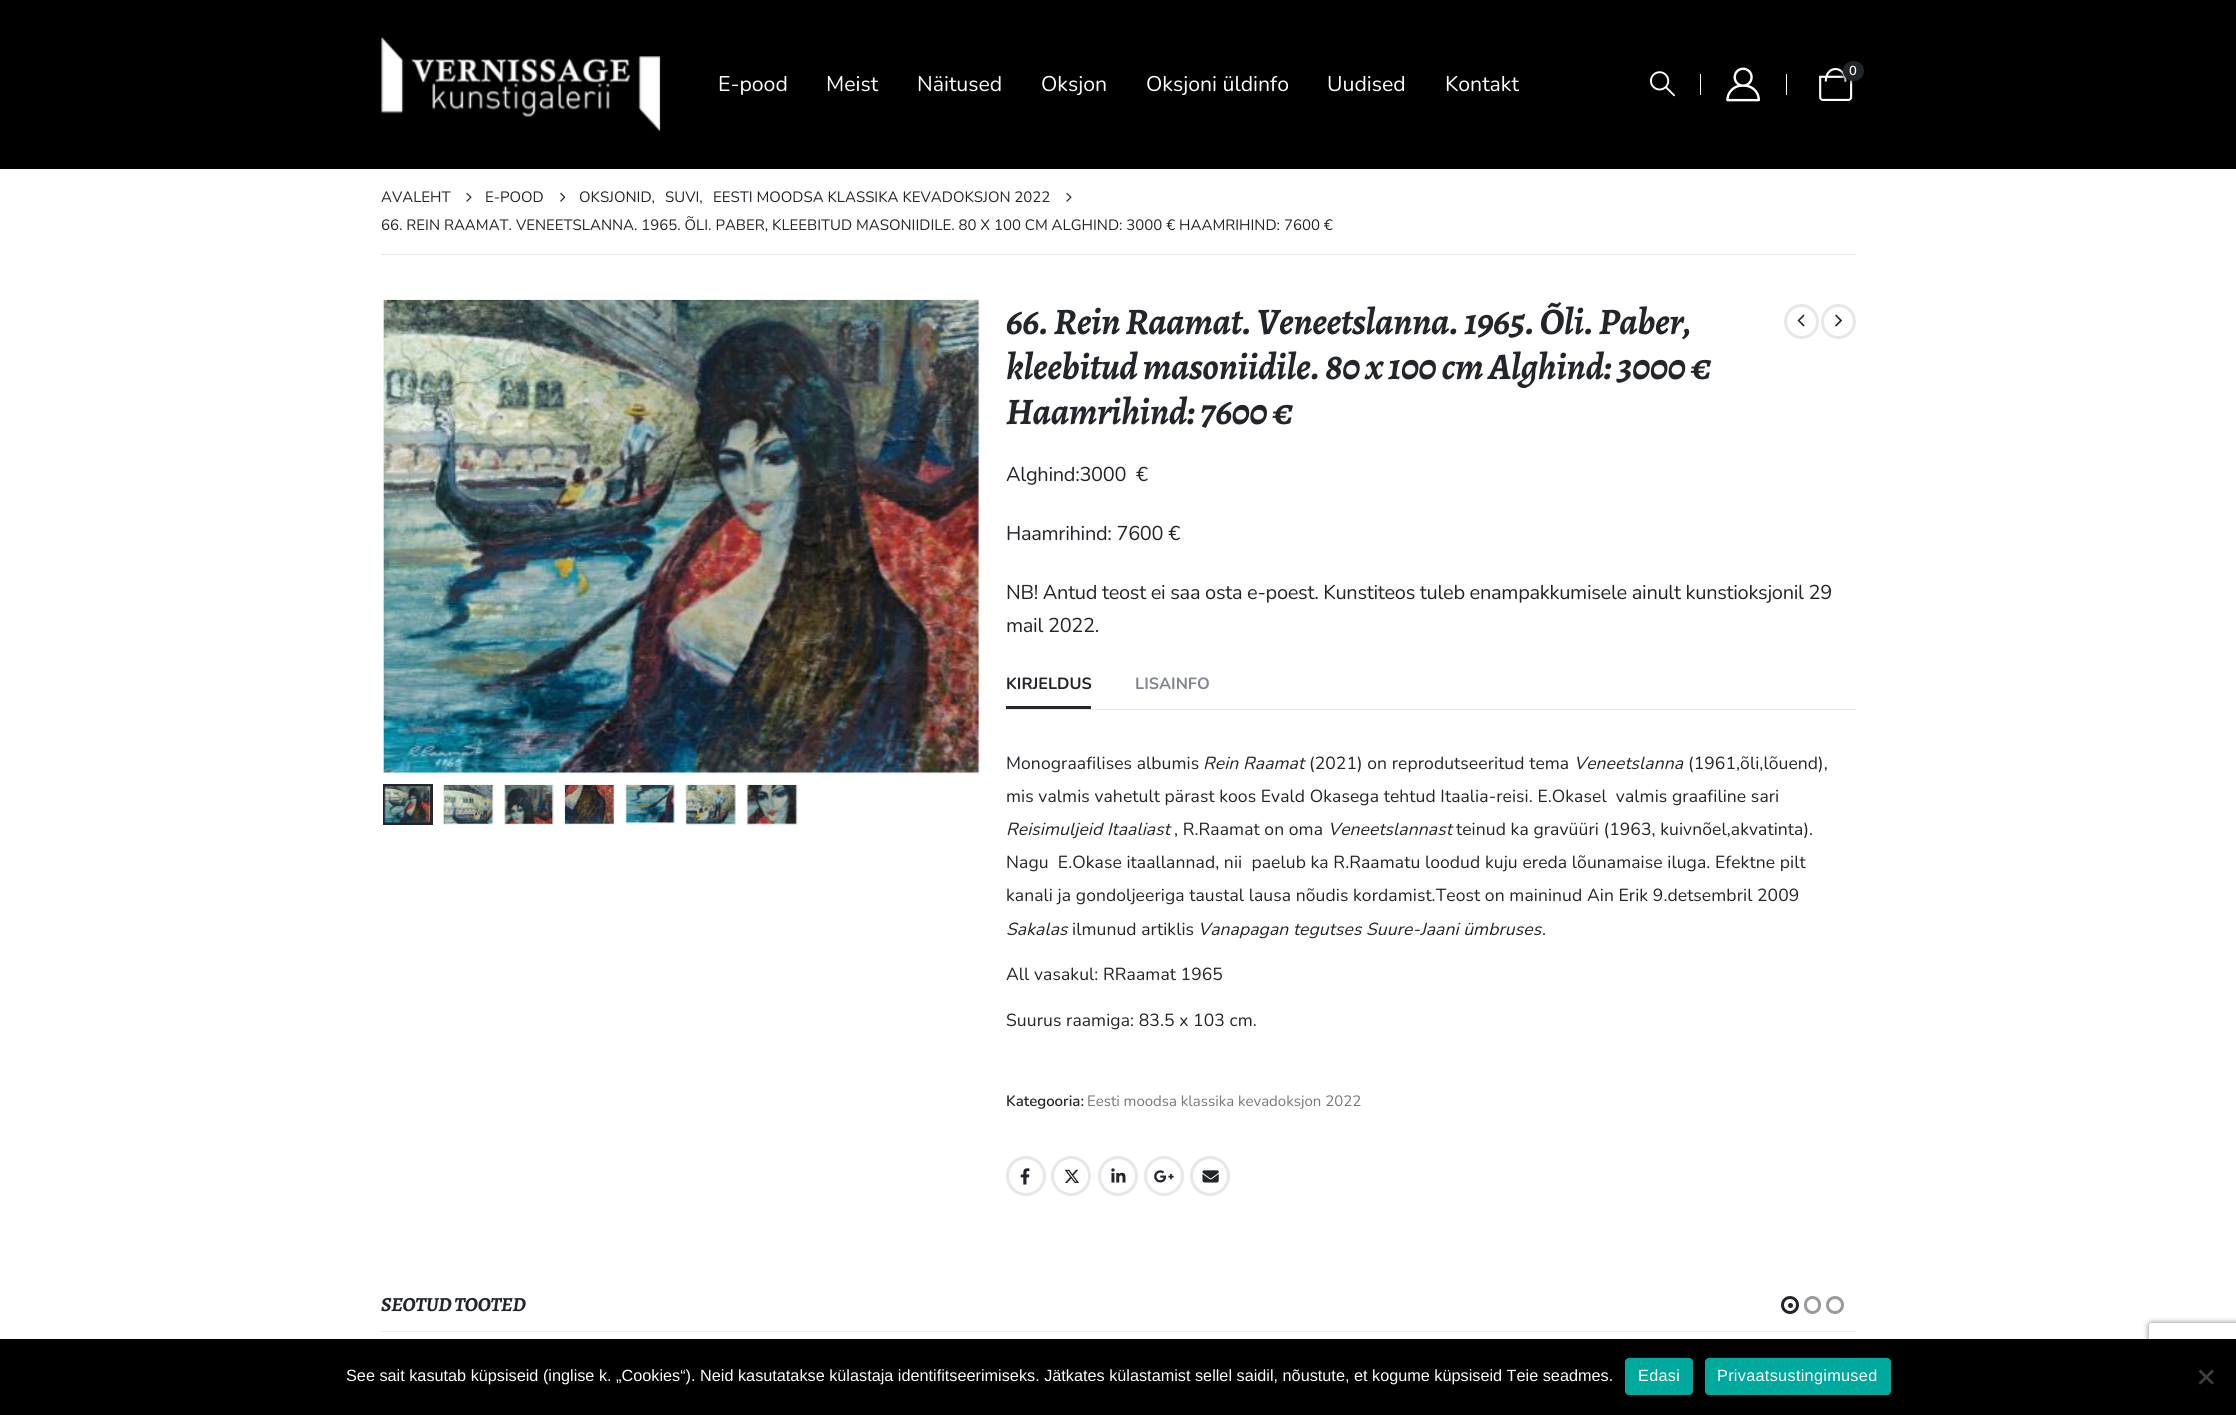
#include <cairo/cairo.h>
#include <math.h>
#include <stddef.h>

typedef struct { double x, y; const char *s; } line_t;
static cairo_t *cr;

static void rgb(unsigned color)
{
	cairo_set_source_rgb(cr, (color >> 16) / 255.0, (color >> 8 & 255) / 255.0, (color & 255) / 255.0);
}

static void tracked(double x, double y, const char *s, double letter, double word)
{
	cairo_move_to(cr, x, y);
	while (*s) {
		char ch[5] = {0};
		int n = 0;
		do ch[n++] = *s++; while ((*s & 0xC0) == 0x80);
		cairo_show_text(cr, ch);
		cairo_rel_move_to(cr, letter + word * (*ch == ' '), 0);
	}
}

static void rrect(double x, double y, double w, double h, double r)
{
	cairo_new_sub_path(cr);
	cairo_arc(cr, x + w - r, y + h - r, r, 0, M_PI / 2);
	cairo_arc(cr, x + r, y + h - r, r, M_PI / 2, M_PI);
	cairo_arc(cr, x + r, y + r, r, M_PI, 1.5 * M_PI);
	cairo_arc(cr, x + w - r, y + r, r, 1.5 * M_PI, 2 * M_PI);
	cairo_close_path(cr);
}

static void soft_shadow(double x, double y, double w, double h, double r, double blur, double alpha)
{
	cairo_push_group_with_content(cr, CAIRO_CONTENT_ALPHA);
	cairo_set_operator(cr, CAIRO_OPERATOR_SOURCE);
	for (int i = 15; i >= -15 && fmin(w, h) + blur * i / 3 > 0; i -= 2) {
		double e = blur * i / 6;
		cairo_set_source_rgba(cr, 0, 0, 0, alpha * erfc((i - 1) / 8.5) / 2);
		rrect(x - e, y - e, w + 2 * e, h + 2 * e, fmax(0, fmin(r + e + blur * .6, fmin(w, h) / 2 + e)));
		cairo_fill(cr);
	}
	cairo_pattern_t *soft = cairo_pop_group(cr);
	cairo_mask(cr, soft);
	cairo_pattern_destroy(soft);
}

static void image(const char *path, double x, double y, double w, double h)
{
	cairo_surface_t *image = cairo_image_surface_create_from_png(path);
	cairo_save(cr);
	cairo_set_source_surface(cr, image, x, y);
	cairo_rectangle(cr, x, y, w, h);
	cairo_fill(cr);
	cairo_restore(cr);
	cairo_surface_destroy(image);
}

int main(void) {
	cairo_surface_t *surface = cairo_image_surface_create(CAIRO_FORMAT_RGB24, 2236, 1415);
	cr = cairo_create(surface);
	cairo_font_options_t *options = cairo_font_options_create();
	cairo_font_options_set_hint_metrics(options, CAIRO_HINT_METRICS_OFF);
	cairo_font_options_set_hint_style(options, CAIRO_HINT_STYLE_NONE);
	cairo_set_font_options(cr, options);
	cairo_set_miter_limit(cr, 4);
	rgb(0xffffff);
	cairo_paint(cr);
	rgb(0x000000);
	cairo_rectangle(cr, 0, 0, 2236, 169);
	cairo_fill(cr);
	image("img/1.png", 381, 37, 280, 95);
	image("img/2.png", 1650, 71, 25, 26);
	rgb(0xffffff);
	cairo_rectangle(cr, 1700, 74, 1, 21);
	cairo_fill(cr);
	image("img/3.png", 1726, 67, 34, 35);
	cairo_rectangle(cr, 1786, 74, 1, 21);
	cairo_fill(cr);
	image("img/4.png", 1819, 67, 34, 34);
	rgb(0x000000);
	soft_shadow(1841, 63, 22, 20, 10, 1, 0.3);
	rgb(0x222529);
	rrect(1843, 61, 21, 20, 10);
	cairo_fill(cr);
	image("img/5.png", 466, 192, 6, 10);
	image("img/6.png", 560, 192, 6, 10);
	image("img/5.png", 1066, 192, 6, 10);
	rgb(0xe7e7e7);
	cairo_rectangle(cr, 381, 254, 1475, 1);
	cairo_fill(cr);
	cairo_rectangle(cr, 383.5, 299.5, 596, 474);
	rgb(0xf4f4f4);
	cairo_set_line_width(cr, 1);
	cairo_stroke(cr);
	image("img/7.png", 383, 300, 596, 473);
	cairo_rectangle(cr, 384.5, 785.5, 47, 38);
	rgb(0x222529);
	cairo_set_line_width(cr, 3);
	cairo_stroke(cr);
	image("img/8.png", 384, 786, 47, 38);
	cairo_rectangle(cr, 443.5, 784.5, 50, 40);
	rgb(0xf4f4f4);
	cairo_set_line_width(cr, 1);
	cairo_stroke(cr);
	image("img/9.png", 443, 785, 50, 39);
	cairo_rectangle(cr, 504.5, 784.5, 49, 40);
	cairo_stroke(cr);
	image("img/10.png", 504, 785, 50, 39);
	cairo_rectangle(cr, 564.5, 784.5, 50, 40);
	cairo_stroke(cr);
	image("img/11.png", 565, 785, 49, 39);
	cairo_rectangle(cr, 625.5, 784.5, 49, 39);
	cairo_stroke(cr);
	image("img/12.png", 626, 785, 49, 38);
	cairo_rectangle(cr, 685.5, 784.5, 50, 40);
	cairo_stroke(cr);
	image("img/13.png", 686, 785, 50, 40);
	cairo_rectangle(cr, 746.5, 784.5, 51, 40);
	cairo_stroke(cr);
	image("img/14.png", 747, 785, 50, 40);
	cairo_arc(cr, 1801.5, 321.5, 16, 0, 2 * M_PI);
	rgb(0xe7e7e7);
	cairo_set_line_width(cr, 3);
	cairo_stroke(cr);
	image("img/15.png", 1797, 314, 8, 13);
	cairo_arc(cr, 1838.5, 321.5, 16, 0, 2 * M_PI);
	cairo_stroke(cr);
	image("img/16.png", 1835, 314, 7, 13);
	rgb(0x222529);
	cairo_rectangle(cr, 1006, 706, 85, 3);
	cairo_fill(cr);
	rgb(0xe7e7e7);
	cairo_rectangle(cr, 1006, 709, 850, 1);
	cairo_fill(cr);
	cairo_arc(cr, 1026, 1176, 18.5, 0, 2 * M_PI);
	cairo_stroke(cr);
	image("img/17.png", 1020, 1168, 10, 17);
	cairo_arc(cr, 1071, 1176, 18.5, 0, 2 * M_PI);
	cairo_stroke(cr);
	image("img/18.png", 1064, 1169, 16, 14);
	cairo_arc(cr, 1118, 1176, 18.5, 0, 2 * M_PI);
	cairo_stroke(cr);
	image("img/19.png", 1111, 1168, 15, 15);
	cairo_arc(cr, 1164, 1176, 18.5, 0, 2 * M_PI);
	cairo_stroke(cr);
	image("img/20.png", 1154, 1170, 20, 13);
	cairo_arc(cr, 1210, 1176, 18.5, 0, 2 * M_PI);
	cairo_stroke(cr);
	image("img/21.png", 1202, 1170, 17, 13);
	rgb(0xebebeb);
	cairo_rectangle(cr, 381, 1331, 1475, 1);
	cairo_fill(cr);
	cairo_arc(cr, 1790, 1305, 7.5, 0, 2 * M_PI);
	rgb(0x222529);
	cairo_stroke(cr);
	cairo_arc(cr, 1790.5, 1305.5, 2.5, 0, 2 * M_PI);
	cairo_fill(cr);
	rrect(1805.5, 1297.5, 14, 15, 7);
	rgb(0x999999);
	cairo_stroke(cr);
	cairo_arc(cr, 1835, 1305, 7.5, 0, 2 * M_PI);
	cairo_stroke(cr);
	cairo_save(cr);
	cairo_set_fill_rule(cr, CAIRO_FILL_RULE_EVEN_ODD);
	cairo_new_path(cr);
	cairo_move_to(cr, 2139, 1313);
	cairo_line_to(cr, 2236, 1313);
	cairo_line_to(cr, 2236, 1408);
	cairo_line_to(cr, 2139, 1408);
	cairo_close_path(cr);
	cairo_move_to(cr, 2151.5, 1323);
	cairo_line_to(cr, 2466.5, 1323);
	cairo_curve_to(cr, 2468, 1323, 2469, 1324, 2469, 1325.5);
	cairo_line_to(cr, 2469, 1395.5);
	cairo_curve_to(cr, 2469, 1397, 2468, 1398, 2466.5, 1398);
	cairo_line_to(cr, 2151.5, 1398);
	cairo_curve_to(cr, 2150, 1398, 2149, 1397, 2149, 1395.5);
	cairo_line_to(cr, 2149, 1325.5);
	cairo_curve_to(cr, 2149, 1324, 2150, 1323, 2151.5, 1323);
	cairo_close_path(cr);
	cairo_clip(cr);
	rgb(0x808080);
	soft_shadow(2149, 1323, 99, 75, 2.5, 3, 1);
	cairo_restore(cr);
	rgb(0x000000);
	cairo_rectangle(cr, 0, 1339, 2236, 76);
	cairo_fill(cr);
	rgb(0x00a99d);
	rrect(1625, 1358, 68, 37, 4);
	cairo_fill(cr);
	rrect(1705, 1358, 186, 37, 4);
	cairo_fill(cr);
	rgb(0x404040);
	cairo_new_path(cr);
	cairo_move_to(cr, 2212, 1369.5);
	cairo_line_to(cr, 2214, 1371.5);
	cairo_line_to(cr, 2200.5, 1384.5);
	cairo_line_to(cr, 2198.5, 1383);
	cairo_close_path(cr);
	cairo_fill(cr);
	cairo_new_path(cr);
	cairo_move_to(cr, 2198.5, 1371.5);
	cairo_line_to(cr, 2200.5, 1369.5);
	cairo_line_to(cr, 2214, 1383);
	cairo_line_to(cr, 2212, 1384.5);
	cairo_close_path(cr);
	cairo_fill(cr);
	cairo_select_font_face(cr, "Nunito SemiBold", CAIRO_FONT_SLANT_NORMAL, CAIRO_FONT_WEIGHT_NORMAL);
	cairo_set_font_size(cr, 13);
	rgb(0xffffff);
	cairo_move_to(cr, 1849, 75);
	cairo_show_text(cr, "0");
	cairo_select_font_face(cr, "Nunito", CAIRO_FONT_SLANT_NORMAL, CAIRO_FONT_WEIGHT_NORMAL);
	cairo_set_font_size(cr, 21.25);
	{
		static const line_t items[] = {
			{718, 91, "E-pood"},
			{826, 91, "Meist"},
			{917, 91, "Näitused"},
			{1041, 91, "Oksjon"},
			{1146, 91, "Oksjoni üldinfo"},
			{1327, 91, "Uudised"},
			{1445, 91, "Kontakt"},
		};
		for (size_t i = 0; i < sizeof items / sizeof *items; i++) {
			cairo_move_to(cr, items[i].x, items[i].y);
			cairo_show_text(cr, items[i].s);
		}
	}
	cairo_set_font_size(cr, 15);
	rgb(0x222529);
	{
		static const line_t items[] = {
			{381, 202, "AVALEHT"},
			{485, 202, "E-POOD"},
			{579, 202, "OKSJONID,"},
			{665, 202, "SUVI,"},
			{713, 202, "EESTI MOODSA KLASSIKA KEVADOKSJON 2022"},
			{381, 230, "66. REIN RAAMAT. VENEETSLANNA. 1965. ÕLI. PABER, KLEEBITUD MASONIIDILE. 80 X 100 CM ALGHIND: 3000 € HAAMRIHIND: 7600 €"},
		};
		for (size_t i = 0; i < sizeof items / sizeof *items; i++) {
			cairo_move_to(cr, items[i].x, items[i].y);
			cairo_show_text(cr, items[i].s);
		}
	}
	cairo_select_font_face(cr, "Alegreya", CAIRO_FONT_SLANT_ITALIC, CAIRO_FONT_WEIGHT_BOLD);
	cairo_set_font_size(cr, 37.5);
	{
		static const line_t items[] = {
			{1006, 334, "66. Rein Raamat. Veneetslanna. 1965. Õli. Paber,"},
			{1006, 379, "kleebitud masoniidile. 80 x 100 cm Alghind: 3000 €"},
			{1006, 424, "Haamrihind: 7600 €"},
		};
		for (size_t i = 0; i < sizeof items / sizeof *items; i++) {
			tracked(items[i].x, items[i].y, items[i].s, -0.38, 0);
		}
	}
	cairo_select_font_face(cr, "Nunito", CAIRO_FONT_SLANT_NORMAL, CAIRO_FONT_WEIGHT_NORMAL);
	cairo_set_font_size(cr, 20);
	{
		static const line_t items[] = {
			{1006, 481, "Alghind:3000  €"},
			{1006, 540, "Haamrihind: 7600 €"},
			{1006, 599, "NB! Antud teost ei saa osta e-poest. Kunstiteos tuleb enampakkumisele ainult kunstioksjonil 29"},
			{1006, 632, "mail 2022."},
		};
		for (size_t i = 0; i < sizeof items / sizeof *items; i++) {
			tracked(items[i].x, items[i].y, items[i].s, -0.3, 0);
		}
	}
	cairo_select_font_face(cr, "Nunito", CAIRO_FONT_SLANT_NORMAL, CAIRO_FONT_WEIGHT_BOLD);
	cairo_set_font_size(cr, 16.25);
	cairo_move_to(cr, 1006, 689);
	cairo_show_text(cr, "KIRJELDUS");
	rgb(0x818692);
	cairo_move_to(cr, 1135, 689);
	cairo_show_text(cr, "LISAINFO");
	cairo_select_font_face(cr, "Nunito", CAIRO_FONT_SLANT_NORMAL, CAIRO_FONT_WEIGHT_NORMAL);
	cairo_set_font_size(cr, 17.5);
	rgb(0x222529);
	tracked(1006, 769, "Monograafilises albumis", 0.09, 0);
	cairo_select_font_face(cr, "Nunito", CAIRO_FONT_SLANT_ITALIC, CAIRO_FONT_WEIGHT_NORMAL);
	tracked(1203, 769, "Rein Raamat", 0.09, 0);
	cairo_select_font_face(cr, "Nunito", CAIRO_FONT_SLANT_NORMAL, CAIRO_FONT_WEIGHT_NORMAL);
	tracked(1309, 769, "(2021) on reprodutseeritud tema", 0.09, 0);
	cairo_select_font_face(cr, "Nunito", CAIRO_FONT_SLANT_ITALIC, CAIRO_FONT_WEIGHT_NORMAL);
	tracked(1574, 769, "Veneetslanna", 0.09, 0);
	cairo_select_font_face(cr, "Nunito", CAIRO_FONT_SLANT_NORMAL, CAIRO_FONT_WEIGHT_NORMAL);
	tracked(1688, 769, "(1961,õli,lõuend),", 0.09, 0);
	tracked(1006, 802, "mis valmis vahetult pärast koos Evald Okasega tehtud Itaalia-reisi. E.Okasel  valmis graafiline sari", 0.09, 0);
	cairo_select_font_face(cr, "Nunito", CAIRO_FONT_SLANT_ITALIC, CAIRO_FONT_WEIGHT_NORMAL);
	tracked(1006, 835, "Reisimuljeid Itaaliast", 0.09, 0);
	cairo_select_font_face(cr, "Nunito", CAIRO_FONT_SLANT_NORMAL, CAIRO_FONT_WEIGHT_NORMAL);
	tracked(1174, 835, ", R.Raamat on oma", 0.09, 0);
	cairo_select_font_face(cr, "Nunito", CAIRO_FONT_SLANT_ITALIC, CAIRO_FONT_WEIGHT_NORMAL);
	tracked(1328, 835, "Veneetslannast", 0.09, 0);
	cairo_select_font_face(cr, "Nunito", CAIRO_FONT_SLANT_NORMAL, CAIRO_FONT_WEIGHT_NORMAL);
	{
		static const line_t items[] = {
			{1456, 835, "teinud ka gravüüri (1963, kuivnõel,akvatinta)."},
			{1006, 868, "Nagu  E.Okase itaallannad, nii  paelub ka R.Raamatu loodud kuju ereda lõunamaise iluga. Efektne pilt"},
			{1006, 901, "kanali ja gondoljeeriga taustal lausa nõudis kordamist.Teost on maininud Ain Erik 9.detsembril 2009"},
		};
		for (size_t i = 0; i < sizeof items / sizeof *items; i++) {
			tracked(items[i].x, items[i].y, items[i].s, 0.09, 0);
		}
	}
	cairo_select_font_face(cr, "Nunito", CAIRO_FONT_SLANT_ITALIC, CAIRO_FONT_WEIGHT_NORMAL);
	tracked(1006, 935, "Sakalas", 0.09, 0);
	cairo_select_font_face(cr, "Nunito", CAIRO_FONT_SLANT_NORMAL, CAIRO_FONT_WEIGHT_NORMAL);
	tracked(1072, 935, "ilmunud artiklis", 0.09, 0);
	cairo_select_font_face(cr, "Nunito", CAIRO_FONT_SLANT_ITALIC, CAIRO_FONT_WEIGHT_NORMAL);
	tracked(1198, 935, "Vanapagan tegutses Suure-Jaani ümbruses", 0.09, 0);
	cairo_select_font_face(cr, "Nunito", CAIRO_FONT_SLANT_NORMAL, CAIRO_FONT_WEIGHT_NORMAL);
	{
		static const line_t items[] = {
			{1542, 935, "."},
			{1006, 980, "All vasakul: RRaamat 1965"},
			{1006, 1026, "Suurus raamiga: 83.5 x 103 cm."},
		};
		for (size_t i = 0; i < sizeof items / sizeof *items; i++) {
			tracked(items[i].x, items[i].y, items[i].s, 0.09, 0);
		}
	}
	cairo_select_font_face(cr, "Nunito SemiBold", CAIRO_FONT_SLANT_NORMAL, CAIRO_FONT_WEIGHT_NORMAL);
	cairo_set_font_size(cr, 15);
	cairo_move_to(cr, 1006, 1106);
	cairo_show_text(cr, "Kategooria:");
	cairo_select_font_face(cr, "Nunito", CAIRO_FONT_SLANT_NORMAL, CAIRO_FONT_WEIGHT_NORMAL);
	rgb(0x777777);
	cairo_move_to(cr, 1087, 1106);
	cairo_show_text(cr, "Eesti moodsa klassika kevadoksjon 2022");
	cairo_select_font_face(cr, "Alegreya", CAIRO_FONT_SLANT_ITALIC, CAIRO_FONT_WEIGHT_BOLD);
	cairo_set_font_size(cr, 20);
	rgb(0x222529);
	tracked(381, 1311, "SEOTUD TOOTED", -0.25, 0);
	cairo_select_font_face(cr, "Liberation Sans", CAIRO_FONT_SLANT_NORMAL, CAIRO_FONT_WEIGHT_NORMAL);
	cairo_set_font_size(cr, 16.25);
	rgb(0xffffff);
	cairo_move_to(cr, 346, 1381);
	cairo_show_text(cr, "See sait kasutab küpsiseid (inglise k. „Cookies“). Neid kasutatakse külastaja identifitseerimiseks. Jätkates külastamist sellel saidil, nõustute, et kogume küpsiseid Teie seadmes.");
	tracked(1638, 1381, "Edasi", 0.3, 0);
	tracked(1717, 1381, "Privaatsustingimused", 0.3, 0);
	cairo_surface_write_to_png(surface, "page.png");
	cairo_font_options_destroy(options);
	cairo_destroy(cr);
	cairo_surface_destroy(surface);
	return 0;
}
